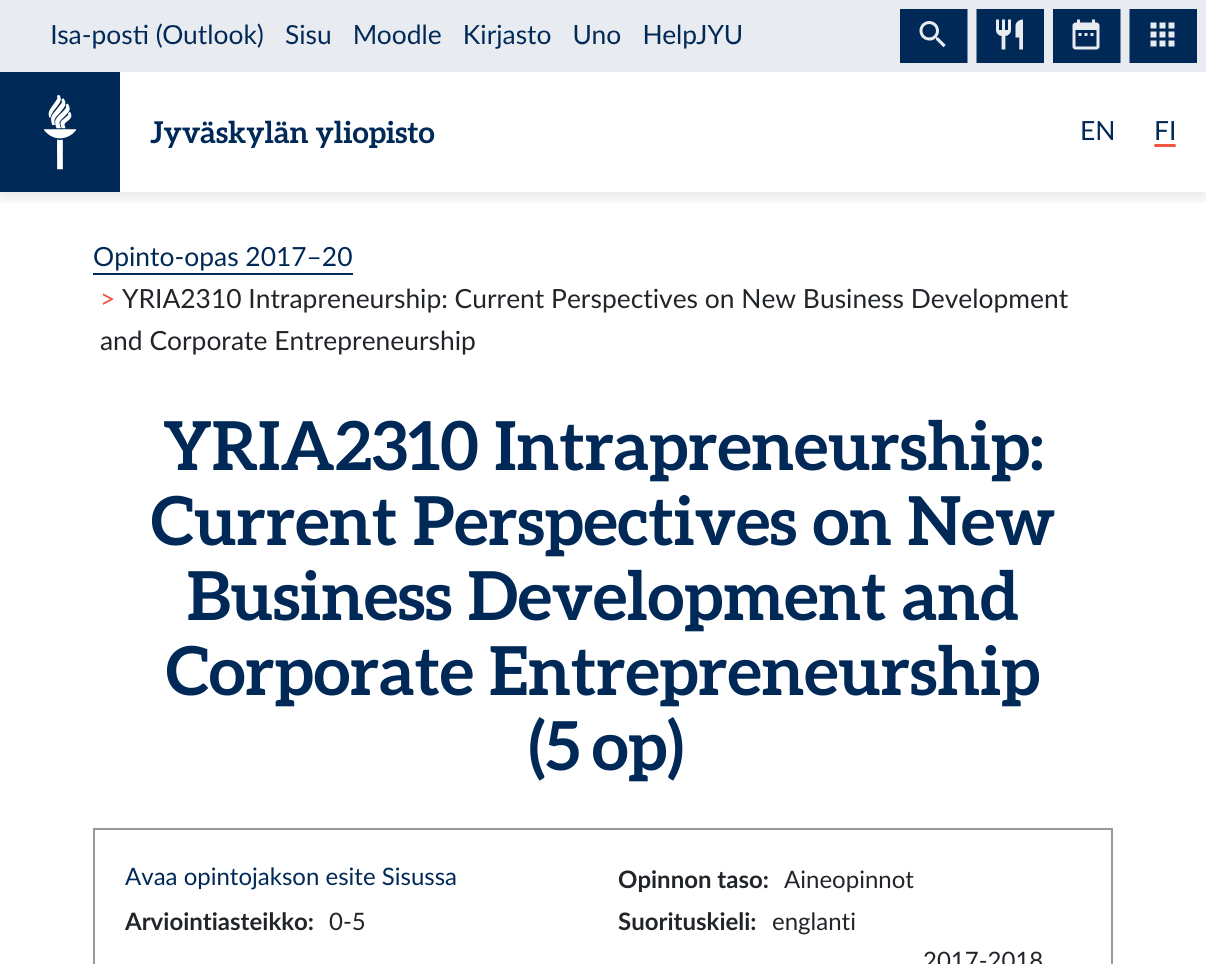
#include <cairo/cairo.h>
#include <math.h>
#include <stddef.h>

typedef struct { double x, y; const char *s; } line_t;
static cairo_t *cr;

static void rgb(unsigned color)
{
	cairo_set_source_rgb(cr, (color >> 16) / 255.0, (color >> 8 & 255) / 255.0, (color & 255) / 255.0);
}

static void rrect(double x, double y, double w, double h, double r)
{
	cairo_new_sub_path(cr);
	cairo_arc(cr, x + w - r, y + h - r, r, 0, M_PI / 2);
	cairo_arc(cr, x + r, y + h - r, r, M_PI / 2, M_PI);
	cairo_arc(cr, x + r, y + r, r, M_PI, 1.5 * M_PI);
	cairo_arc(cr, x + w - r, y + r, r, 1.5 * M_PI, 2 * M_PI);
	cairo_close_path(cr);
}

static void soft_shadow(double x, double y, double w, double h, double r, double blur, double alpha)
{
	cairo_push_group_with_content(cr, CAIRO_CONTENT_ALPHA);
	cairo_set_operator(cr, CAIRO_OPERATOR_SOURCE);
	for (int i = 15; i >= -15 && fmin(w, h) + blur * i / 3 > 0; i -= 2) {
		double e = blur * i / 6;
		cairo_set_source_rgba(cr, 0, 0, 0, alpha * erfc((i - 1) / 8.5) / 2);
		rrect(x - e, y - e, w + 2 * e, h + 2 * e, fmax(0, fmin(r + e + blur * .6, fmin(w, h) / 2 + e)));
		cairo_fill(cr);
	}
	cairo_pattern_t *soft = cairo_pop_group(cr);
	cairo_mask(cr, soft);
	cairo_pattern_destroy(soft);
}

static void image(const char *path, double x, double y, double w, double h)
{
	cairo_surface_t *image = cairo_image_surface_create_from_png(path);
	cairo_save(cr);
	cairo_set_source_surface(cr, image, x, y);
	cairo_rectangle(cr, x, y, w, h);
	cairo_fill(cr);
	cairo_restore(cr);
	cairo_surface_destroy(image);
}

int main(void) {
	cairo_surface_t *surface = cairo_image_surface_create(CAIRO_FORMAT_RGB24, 1206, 964);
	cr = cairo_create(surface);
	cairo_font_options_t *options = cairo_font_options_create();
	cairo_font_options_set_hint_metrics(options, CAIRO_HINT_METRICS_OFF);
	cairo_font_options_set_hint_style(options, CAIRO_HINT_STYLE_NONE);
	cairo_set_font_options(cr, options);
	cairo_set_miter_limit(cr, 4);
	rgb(0xffffff);
	cairo_paint(cr);
	cairo_save(cr);
	cairo_rectangle(cr, 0, 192, 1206, 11);
	cairo_clip(cr);
	rgb(0x000000);
	soft_shadow(0, 77, 1206, 120, 0, 7.5, 0.1);
	cairo_restore(cr);
	image("img/1.png", 0, 0, 1206, 72);
	rgb(0x002957);
	cairo_rectangle(cr, 0, 72, 120, 120);
	cairo_fill(cr);
	image("img/2.png", 44, 95, 33, 75);
	rgb(0xf1563f);
	rrect(1154, 144, 22, 3, 1.5);
	cairo_fill(cr);
	rgb(0x002957);
	cairo_rectangle(cr, 93, 273, 260, 2);
	cairo_fill(cr);
	cairo_rectangle(cr, 94, 829, 1018, 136);
	rgb(0x999999);
	cairo_stroke(cr);
	cairo_select_font_face(cr, "Aleo", CAIRO_FONT_SLANT_NORMAL, CAIRO_FONT_WEIGHT_BOLD);
	cairo_set_font_size(cr, 30);
	rgb(0x002957);
	cairo_move_to(cr, 150, 143);
	cairo_show_text(cr, "Jyväskylän yliopisto");
	cairo_select_font_face(cr, "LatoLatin", CAIRO_FONT_SLANT_NORMAL, CAIRO_FONT_WEIGHT_NORMAL);
	cairo_set_font_size(cr, 26.4);
	{
		static const line_t items[] = {
			{1080, 140, "EN"},
			{1154, 140, "FI"},
			{93, 266, "Opinto-opas 2017–20"},
		};
		for (size_t i = 0; i < sizeof items / sizeof *items; i++) {
			cairo_move_to(cr, items[i].x, items[i].y);
			cairo_show_text(cr, items[i].s);
		}
	}
	rgb(0xf1563f);
	cairo_move_to(cr, 100, 308);
	cairo_show_text(cr, ">");
	rgb(0x212529);
	cairo_move_to(cr, 122, 308);
	cairo_show_text(cr, "YRIA2310 Intrapreneurship: Current Perspectives on New Business Development");
	cairo_move_to(cr, 100, 350);
	cairo_show_text(cr, "and Corporate Entrepreneurship");
	cairo_select_font_face(cr, "Aleo", CAIRO_FONT_SLANT_NORMAL, CAIRO_FONT_WEIGHT_BOLD);
	cairo_set_font_size(cr, 67.5);
	rgb(0x002957);
	{
		static const line_t items[] = {
			{163, 470, "YRIA2310 Intrapreneurship:"},
			{151, 545, "Current Perspectives on New"},
			{187, 620, "Business Development and"},
			{166, 695, "Corporate Entrepreneurship"},
			{529, 770, "(5"},
			{592, 770, "op)"},
		};
		for (size_t i = 0; i < sizeof items / sizeof *items; i++) {
			cairo_move_to(cr, items[i].x, items[i].y);
			cairo_show_text(cr, items[i].s);
		}
	}
	cairo_select_font_face(cr, "LatoLatin", CAIRO_FONT_SLANT_NORMAL, CAIRO_FONT_WEIGHT_NORMAL);
	cairo_set_font_size(cr, 24);
	cairo_move_to(cr, 125, 885);
	cairo_show_text(cr, "Avaa opintojakson esite Sisussa");
	cairo_select_font_face(cr, "LatoLatin", CAIRO_FONT_SLANT_NORMAL, CAIRO_FONT_WEIGHT_BOLD);
	rgb(0x212529);
	cairo_move_to(cr, 618, 888);
	cairo_show_text(cr, "Opinnon taso:");
	cairo_select_font_face(cr, "LatoLatin", CAIRO_FONT_SLANT_NORMAL, CAIRO_FONT_WEIGHT_NORMAL);
	cairo_move_to(cr, 784, 888);
	cairo_show_text(cr, "Aineopinnot");
	cairo_select_font_face(cr, "LatoLatin", CAIRO_FONT_SLANT_NORMAL, CAIRO_FONT_WEIGHT_BOLD);
	cairo_move_to(cr, 125, 930);
	cairo_show_text(cr, "Arviointiasteikko:");
	cairo_select_font_face(cr, "LatoLatin", CAIRO_FONT_SLANT_NORMAL, CAIRO_FONT_WEIGHT_NORMAL);
	cairo_move_to(cr, 329, 930);
	cairo_show_text(cr, "0-5");
	cairo_select_font_face(cr, "LatoLatin", CAIRO_FONT_SLANT_NORMAL, CAIRO_FONT_WEIGHT_BOLD);
	cairo_move_to(cr, 618, 930);
	cairo_show_text(cr, "Suorituskieli:");
	cairo_select_font_face(cr, "LatoLatin", CAIRO_FONT_SLANT_NORMAL, CAIRO_FONT_WEIGHT_NORMAL);
	cairo_move_to(cr, 772, 930);
	cairo_show_text(cr, "englanti");
	cairo_move_to(cr, 923, 969);
	cairo_show_text(cr, "2017-2018");
	cairo_surface_write_to_png(surface, "page.png");
	cairo_font_options_destroy(options);
	cairo_destroy(cr);
	cairo_surface_destroy(surface);
	return 0;
}
